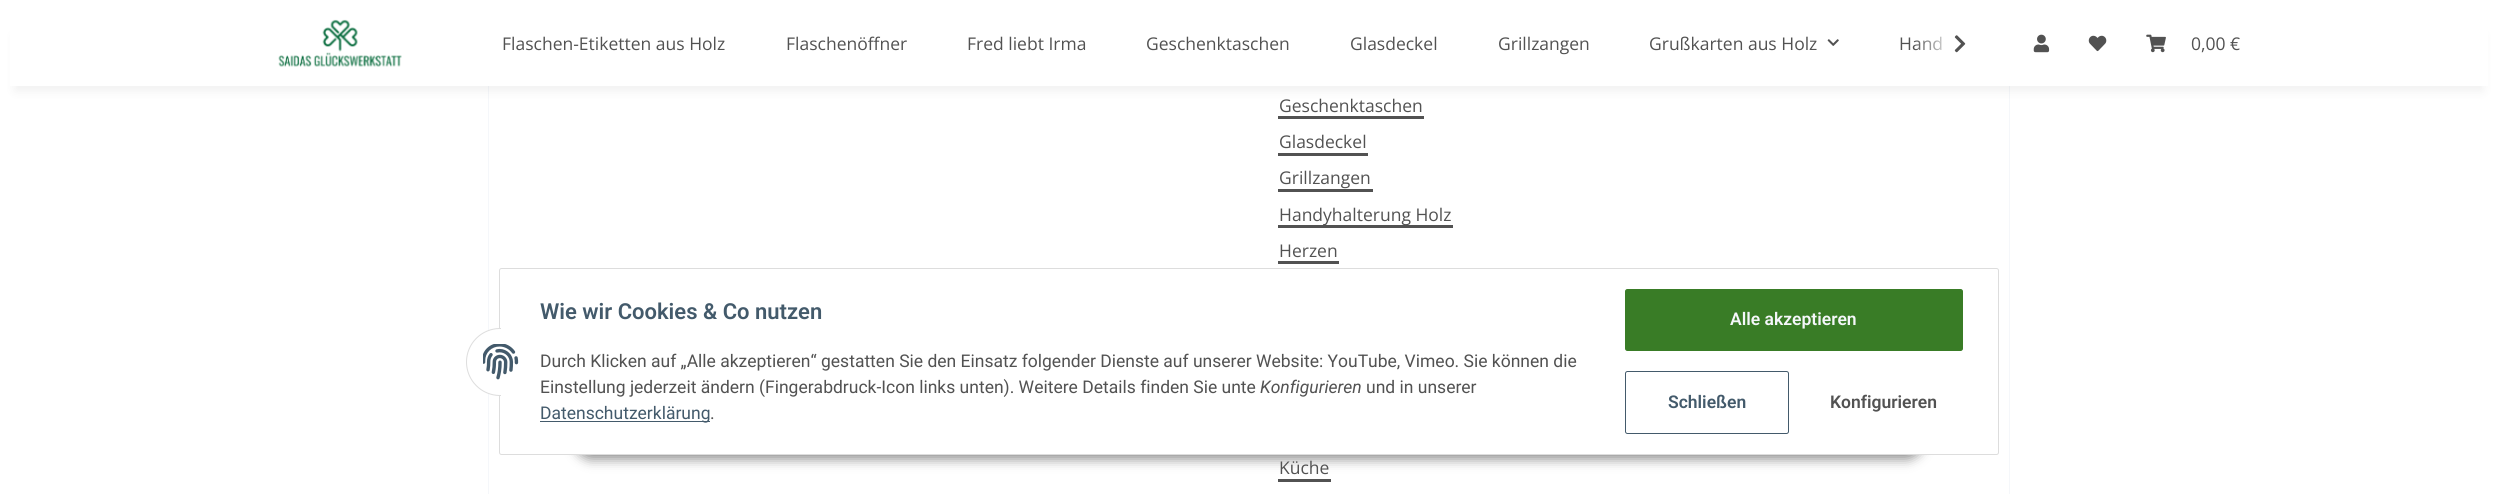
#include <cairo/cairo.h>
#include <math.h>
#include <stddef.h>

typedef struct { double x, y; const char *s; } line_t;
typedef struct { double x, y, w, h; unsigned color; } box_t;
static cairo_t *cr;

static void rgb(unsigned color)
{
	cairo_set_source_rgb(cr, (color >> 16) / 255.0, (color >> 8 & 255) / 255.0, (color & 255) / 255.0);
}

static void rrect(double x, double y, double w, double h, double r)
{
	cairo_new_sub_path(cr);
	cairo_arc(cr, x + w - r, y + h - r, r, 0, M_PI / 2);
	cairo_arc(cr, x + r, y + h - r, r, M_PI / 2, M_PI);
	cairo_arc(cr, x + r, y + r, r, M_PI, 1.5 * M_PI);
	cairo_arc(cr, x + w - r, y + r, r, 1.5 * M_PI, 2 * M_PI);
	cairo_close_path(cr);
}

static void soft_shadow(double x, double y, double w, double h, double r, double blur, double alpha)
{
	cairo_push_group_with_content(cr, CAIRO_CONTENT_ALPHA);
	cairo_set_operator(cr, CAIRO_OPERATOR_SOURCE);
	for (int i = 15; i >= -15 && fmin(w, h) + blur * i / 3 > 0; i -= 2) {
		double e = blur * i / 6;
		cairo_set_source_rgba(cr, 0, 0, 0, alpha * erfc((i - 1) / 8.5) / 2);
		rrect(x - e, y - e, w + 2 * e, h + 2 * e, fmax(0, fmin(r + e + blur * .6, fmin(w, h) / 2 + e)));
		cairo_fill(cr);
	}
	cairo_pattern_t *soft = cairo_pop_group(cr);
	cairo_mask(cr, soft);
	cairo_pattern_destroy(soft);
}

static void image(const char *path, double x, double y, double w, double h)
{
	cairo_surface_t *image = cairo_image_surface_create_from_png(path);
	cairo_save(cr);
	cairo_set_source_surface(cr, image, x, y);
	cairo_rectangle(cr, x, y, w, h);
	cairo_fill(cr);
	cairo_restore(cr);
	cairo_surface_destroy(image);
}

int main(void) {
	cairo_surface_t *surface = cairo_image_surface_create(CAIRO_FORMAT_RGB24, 2497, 494);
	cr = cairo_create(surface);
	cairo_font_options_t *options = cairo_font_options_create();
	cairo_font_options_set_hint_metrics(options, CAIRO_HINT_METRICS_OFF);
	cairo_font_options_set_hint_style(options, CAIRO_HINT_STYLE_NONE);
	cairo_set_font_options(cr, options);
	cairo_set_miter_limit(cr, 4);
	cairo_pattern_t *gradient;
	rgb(0xffffff);
	cairo_paint(cr);
	cairo_rectangle(cr, 488.5, -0.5, 1521, 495);
	rgb(0xf5f7fa);
	cairo_set_line_width(cr, 1);
	cairo_stroke(cr);
	rgb(0x000000);
	soft_shadow(15, 35, 2468, 56, 0, 5.5, 0.06);
	rgb(0xffffff);
	cairo_rectangle(cr, 10, 0, 2478, 86);
	cairo_fill(cr);
	image("img/1.png", 278, 19, 124, 48);
	image("img/2.png", 1954, 35, 12, 18);
	image("img/3.png", 1827, 39, 12, 7);
	image("img/4.png", 2033, 34, 17, 19);
	image("img/5.png", 2088, 35, 19, 17);
	image("img/6.png", 2146, 34, 20, 19);
	{
		static const box_t items[] = {
			{1278, 116, 146, 3, 0x525252},
			{1278, 153, 90, 3, 0x525252},
			{1278, 189, 95, 3, 0x525252},
			{1278, 225, 175, 3, 0x525252},
			{1278, 261, 61, 3, 0x525252},
			{1278, 479, 53, 3, 0x525252},
		};
		for (size_t i = 0; i < sizeof items / sizeof *items; i++) {
			rgb(items[i].color);
			cairo_rectangle(cr, items[i].x, items[i].y, items[i].w, items[i].h);
			cairo_fill(cr);
		}
	}
	rgb(0x000000);
	soft_shadow(575, 419, 1348, 40, 20, 6, 0.45);
	rgb(0xffffff);
	rrect(499.5, 268.5, 1499, 186, 2);
	cairo_fill_preserve(cr);
	rgb(0xdddddd);
	cairo_stroke(cr);
	rgb(0xffffff);
	rrect(466.5, 328.5, 68, 67, 33.5);
	cairo_fill_preserve(cr);
	rgb(0xdddddd);
	cairo_stroke(cr);
	rgb(0xffffff);
	cairo_rectangle(cr, 501, 328, 34, 68);
	cairo_fill(cr);
	image("img/7.png", 483, 344, 36, 36);
	rgb(0x435a6b);
	cairo_rectangle(cr, 540, 421, 170, 1);
	cairo_fill(cr);
	rgb(0x397c26);
	rrect(1625.5, 289.5, 337, 61, 2);
	cairo_fill_preserve(cr);
	cairo_stroke(cr);
	rrect(1625.5, 371.5, 163, 62, 2);
	rgb(0x435a6b);
	cairo_stroke(cr);
	cairo_select_font_face(cr, "Open Sans", CAIRO_FONT_SLANT_NORMAL, CAIRO_FONT_WEIGHT_NORMAL);
	cairo_set_font_size(cr, 17.5);
	rgb(0x525252);
	{
		static const line_t items[] = {
			{502, 50, "Flaschen-Etiketten aus Holz"},
			{786, 50, "Flaschenöffner"},
			{967, 50, "Fred liebt Irma"},
			{1146, 50, "Geschenktaschen"},
			{1350, 50, "Glasdeckel"},
			{1498, 50, "Grillzangen"},
			{1649, 50, "Grußkarten aus Holz"},
			{1899, 50, "Hand"},
		};
		for (size_t i = 0; i < sizeof items / sizeof *items; i++) {
			cairo_move_to(cr, items[i].x, items[i].y);
			cairo_show_text(cr, items[i].s);
		}
	}
	gradient = cairo_pattern_create_linear(1914, 44, 1974, 44);
	cairo_pattern_add_color_stop_rgba(gradient, 0, 1, 1, 1, 0.01);
	cairo_pattern_add_color_stop_rgba(gradient, 0.7, 1, 1, 1, 1);
	cairo_set_source(cr, gradient);
	cairo_pattern_destroy(gradient);
	cairo_rectangle(cr, 1914, 36, 28, 15);
	cairo_fill(cr);
	rgb(0x525252);
	{
		static const line_t items[] = {
			{2191, 50, "0,00 €"},
			{1279, 112, "Geschenktaschen"},
			{1279, 148, "Glasdeckel"},
			{1279, 184, "Grillzangen"},
			{1279, 221, "Handyhalterung Holz"},
			{1279, 257, "Herzen"},
			{1279, 474, "Küche"},
		};
		for (size_t i = 0; i < sizeof items / sizeof *items; i++) {
			cairo_move_to(cr, items[i].x, items[i].y);
			cairo_show_text(cr, items[i].s);
		}
	}
	cairo_select_font_face(cr, "Roboto SemiBold", CAIRO_FONT_SLANT_NORMAL, CAIRO_FONT_WEIGHT_NORMAL);
	cairo_set_font_size(cr, 22);
	rgb(0x435a6b);
	cairo_move_to(cr, 540, 319);
	cairo_show_text(cr, "Wie wir Cookies & Co nutzen");
	cairo_select_font_face(cr, "Roboto", CAIRO_FONT_SLANT_NORMAL, CAIRO_FONT_WEIGHT_NORMAL);
	cairo_set_font_size(cr, 17.5);
	rgb(0x525252);
	cairo_move_to(cr, 540, 367);
	cairo_show_text(cr, "Durch Klicken auf „Alle akzeptieren“ gestatten Sie den Einsatz folgender Dienste auf unserer Website: YouTube, Vimeo. Sie können die");
	cairo_move_to(cr, 540, 393);
	cairo_show_text(cr, "Einstellung jederzeit ändern (Fingerabdruck-Icon links unten). Weitere Details finden Sie unte");
	cairo_select_font_face(cr, "Roboto", CAIRO_FONT_SLANT_ITALIC, CAIRO_FONT_WEIGHT_NORMAL);
	cairo_move_to(cr, 1260, 393);
	cairo_show_text(cr, "Konfigurieren");
	cairo_select_font_face(cr, "Roboto", CAIRO_FONT_SLANT_NORMAL, CAIRO_FONT_WEIGHT_NORMAL);
	cairo_move_to(cr, 1366, 393);
	cairo_show_text(cr, "und in unserer");
	rgb(0x435a6b);
	cairo_move_to(cr, 540, 419);
	cairo_show_text(cr, "Datenschutzerklärung");
	rgb(0x525252);
	cairo_move_to(cr, 710, 419);
	cairo_show_text(cr, ".");
	cairo_select_font_face(cr, "Roboto SemiBold", CAIRO_FONT_SLANT_NORMAL, CAIRO_FONT_WEIGHT_NORMAL);
	rgb(0xf5f7fa);
	cairo_move_to(cr, 1730, 325);
	cairo_show_text(cr, "Alle akzeptieren");
	rgb(0x435a6b);
	cairo_move_to(cr, 1668, 408);
	cairo_show_text(cr, "Schließen");
	rgb(0x525252);
	cairo_move_to(cr, 1830, 408);
	cairo_show_text(cr, "Konfigurieren");
	cairo_surface_write_to_png(surface, "page.png");
	cairo_font_options_destroy(options);
	cairo_destroy(cr);
	cairo_surface_destroy(surface);
	return 0;
}
